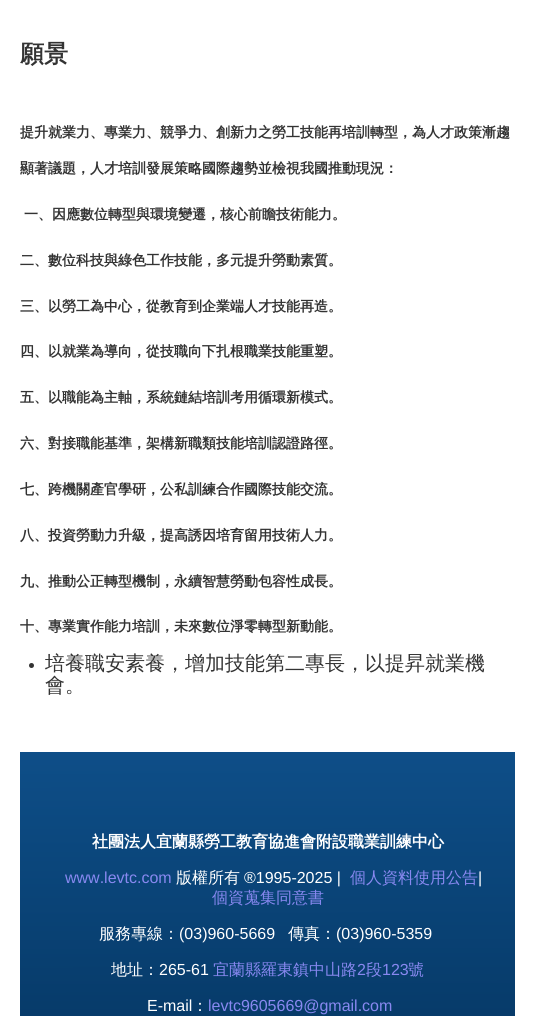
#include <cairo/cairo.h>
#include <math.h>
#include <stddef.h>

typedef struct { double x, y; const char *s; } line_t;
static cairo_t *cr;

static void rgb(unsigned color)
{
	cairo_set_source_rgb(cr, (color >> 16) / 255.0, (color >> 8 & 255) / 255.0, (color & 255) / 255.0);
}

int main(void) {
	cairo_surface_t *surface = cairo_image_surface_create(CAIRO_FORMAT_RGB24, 535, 1016);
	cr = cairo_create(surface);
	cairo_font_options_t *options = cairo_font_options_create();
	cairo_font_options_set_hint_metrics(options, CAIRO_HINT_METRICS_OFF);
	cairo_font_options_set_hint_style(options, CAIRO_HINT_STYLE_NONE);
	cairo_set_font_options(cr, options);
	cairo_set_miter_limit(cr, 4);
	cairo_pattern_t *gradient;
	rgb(0xffffff);
	cairo_paint(cr);
	rgb(0x333333);
	cairo_arc(cr, 31.5, 665.5, 2.5, 0, 2 * M_PI);
	cairo_fill(cr);
	gradient = cairo_pattern_create_linear(267, 752, 268, 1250);
	cairo_pattern_add_color_stop_rgba(gradient, 0, 0.055, 0.306, 0.533, 1);
	cairo_pattern_add_color_stop_rgba(gradient, 1, 0, 0.165, 0.31, 1);
	cairo_set_source(cr, gradient);
	cairo_pattern_destroy(gradient);
	cairo_rectangle(cr, 20, 752, 495, 264);
	cairo_fill(cr);
	cairo_select_font_face(cr, "WenQuanYi Zen Hei", CAIRO_FONT_SLANT_NORMAL, CAIRO_FONT_WEIGHT_BOLD);
	cairo_set_font_size(cr, 24);
	rgb(0x333333);
	cairo_move_to(cr, 20, 62);
	cairo_show_text(cr, "願景");
	cairo_set_font_size(cr, 14);
	{
		static const line_t items[] = {
			{20, 137, "提升就業力、專業力、競爭力、創新力之勞工技能再培訓轉型，為人才政策漸趨"},
			{20, 173, "顯著議題，人才培訓發展策略國際趨勢並檢視我國推動現況："},
			{24, 219, "一、因應數位轉型與環境變遷，核心前瞻技術能力。"},
			{20, 265, "二、數位科技與綠色工作技能，多元提升勞動素質。"},
			{20, 311, "三、以勞工為中心，從教育到企業端人才技能再造。"},
			{20, 356, "四、以就業為導向，從技職向下扎根職業技能重塑。"},
			{20, 402, "五、以職能為主軸，系統鏈結培訓考用循環新模式。"},
			{20, 448, "六、對接職能基準，架構新職類技能培訓認證路徑。"},
			{20, 494, "七、跨機關產官學研，公私訓練合作國際技能交流。"},
			{20, 540, "八、投資勞動力升級，提高誘因培育留用技術人力。"},
			{20, 586, "九、推動公正轉型機制，永續智慧勞動包容性成長。"},
			{20, 631, "十、專業實作能力培訓，未來數位淨零轉型新動能。"},
		};
		for (size_t i = 0; i < sizeof items / sizeof *items; i++) {
			cairo_move_to(cr, items[i].x, items[i].y);
			cairo_show_text(cr, items[i].s);
		}
	}
	cairo_select_font_face(cr, "WenQuanYi Zen Hei Medium", CAIRO_FONT_SLANT_NORMAL, CAIRO_FONT_WEIGHT_NORMAL);
	cairo_set_font_size(cr, 20);
	cairo_move_to(cr, 45, 670);
	cairo_show_text(cr, "培養職安素養，增加技能第二專長，以提昇就業機");
	cairo_move_to(cr, 45, 692);
	cairo_show_text(cr, "會。");
	cairo_select_font_face(cr, "WenQuanYi Zen Hei", CAIRO_FONT_SLANT_NORMAL, CAIRO_FONT_WEIGHT_BOLD);
	cairo_set_font_size(cr, 16);
	rgb(0xffffff);
	cairo_move_to(cr, 92, 847);
	cairo_show_text(cr, "社團法人宜蘭縣勞工教育協進會附設職業訓練中心");
	cairo_select_font_face(cr, "Liberation Sans", CAIRO_FONT_SLANT_NORMAL, CAIRO_FONT_WEIGHT_NORMAL);
	rgb(0x8888f0);
	cairo_move_to(cr, 65, 883);
	cairo_show_text(cr, "www.levtc.com");
	cairo_select_font_face(cr, "WenQuanYi Zen Hei Medium", CAIRO_FONT_SLANT_NORMAL, CAIRO_FONT_WEIGHT_NORMAL);
	rgb(0xffffff);
	cairo_move_to(cr, 176, 883);
	cairo_show_text(cr, "版權所有");
	cairo_select_font_face(cr, "Liberation Sans", CAIRO_FONT_SLANT_NORMAL, CAIRO_FONT_WEIGHT_NORMAL);
	cairo_move_to(cr, 244, 883);
	cairo_show_text(cr, "®1995-2025 |");
	cairo_select_font_face(cr, "WenQuanYi Zen Hei Medium", CAIRO_FONT_SLANT_NORMAL, CAIRO_FONT_WEIGHT_NORMAL);
	rgb(0x8888f0);
	cairo_move_to(cr, 350, 883);
	cairo_show_text(cr, "個人資料使用公告");
	cairo_select_font_face(cr, "Liberation Sans", CAIRO_FONT_SLANT_NORMAL, CAIRO_FONT_WEIGHT_NORMAL);
	rgb(0xffffff);
	cairo_move_to(cr, 478, 883);
	cairo_show_text(cr, "|");
	cairo_select_font_face(cr, "WenQuanYi Zen Hei Medium", CAIRO_FONT_SLANT_NORMAL, CAIRO_FONT_WEIGHT_NORMAL);
	rgb(0x8888f0);
	cairo_move_to(cr, 212, 903);
	cairo_show_text(cr, "個資蒐集同意書");
	rgb(0xffffff);
	cairo_move_to(cr, 99, 939);
	cairo_show_text(cr, "服務專線：");
	cairo_select_font_face(cr, "Liberation Sans", CAIRO_FONT_SLANT_NORMAL, CAIRO_FONT_WEIGHT_NORMAL);
	cairo_move_to(cr, 179, 939);
	cairo_show_text(cr, "(03)960-5669");
	cairo_select_font_face(cr, "WenQuanYi Zen Hei Medium", CAIRO_FONT_SLANT_NORMAL, CAIRO_FONT_WEIGHT_NORMAL);
	cairo_move_to(cr, 288, 939);
	cairo_show_text(cr, "傳真：");
	cairo_select_font_face(cr, "Liberation Sans", CAIRO_FONT_SLANT_NORMAL, CAIRO_FONT_WEIGHT_NORMAL);
	cairo_move_to(cr, 336, 939);
	cairo_show_text(cr, "(03)960-5359");
	cairo_select_font_face(cr, "WenQuanYi Zen Hei Medium", CAIRO_FONT_SLANT_NORMAL, CAIRO_FONT_WEIGHT_NORMAL);
	cairo_move_to(cr, 111, 975);
	cairo_show_text(cr, "地址：");
	cairo_select_font_face(cr, "Liberation Sans", CAIRO_FONT_SLANT_NORMAL, CAIRO_FONT_WEIGHT_NORMAL);
	cairo_move_to(cr, 159, 975);
	cairo_show_text(cr, "265-61");
	cairo_select_font_face(cr, "WenQuanYi Zen Hei Medium", CAIRO_FONT_SLANT_NORMAL, CAIRO_FONT_WEIGHT_NORMAL);
	rgb(0x8888f0);
	cairo_move_to(cr, 213, 975);
	cairo_show_text(cr, "宜蘭縣羅東鎮中山路");
	cairo_select_font_face(cr, "Liberation Sans", CAIRO_FONT_SLANT_NORMAL, CAIRO_FONT_WEIGHT_NORMAL);
	cairo_move_to(cr, 357, 975);
	cairo_show_text(cr, "2");
	cairo_select_font_face(cr, "WenQuanYi Zen Hei Medium", CAIRO_FONT_SLANT_NORMAL, CAIRO_FONT_WEIGHT_NORMAL);
	cairo_move_to(cr, 366, 975);
	cairo_show_text(cr, "段");
	cairo_select_font_face(cr, "Liberation Sans", CAIRO_FONT_SLANT_NORMAL, CAIRO_FONT_WEIGHT_NORMAL);
	cairo_move_to(cr, 382, 975);
	cairo_show_text(cr, "123");
	cairo_select_font_face(cr, "WenQuanYi Zen Hei Medium", CAIRO_FONT_SLANT_NORMAL, CAIRO_FONT_WEIGHT_NORMAL);
	cairo_move_to(cr, 408, 975);
	cairo_show_text(cr, "號");
	cairo_select_font_face(cr, "Liberation Sans", CAIRO_FONT_SLANT_NORMAL, CAIRO_FONT_WEIGHT_NORMAL);
	rgb(0xffffff);
	cairo_move_to(cr, 147, 1011);
	cairo_show_text(cr, "E-mail");
	cairo_select_font_face(cr, "WenQuanYi Zen Hei Medium", CAIRO_FONT_SLANT_NORMAL, CAIRO_FONT_WEIGHT_NORMAL);
	cairo_move_to(cr, 192, 1011);
	cairo_show_text(cr, "：");
	cairo_select_font_face(cr, "Liberation Sans", CAIRO_FONT_SLANT_NORMAL, CAIRO_FONT_WEIGHT_NORMAL);
	rgb(0x8888f0);
	cairo_move_to(cr, 208, 1011);
	cairo_show_text(cr, "levtc9605669@gmail.com");
	cairo_surface_write_to_png(surface, "page.png");
	cairo_font_options_destroy(options);
	cairo_destroy(cr);
	cairo_surface_destroy(surface);
	return 0;
}
